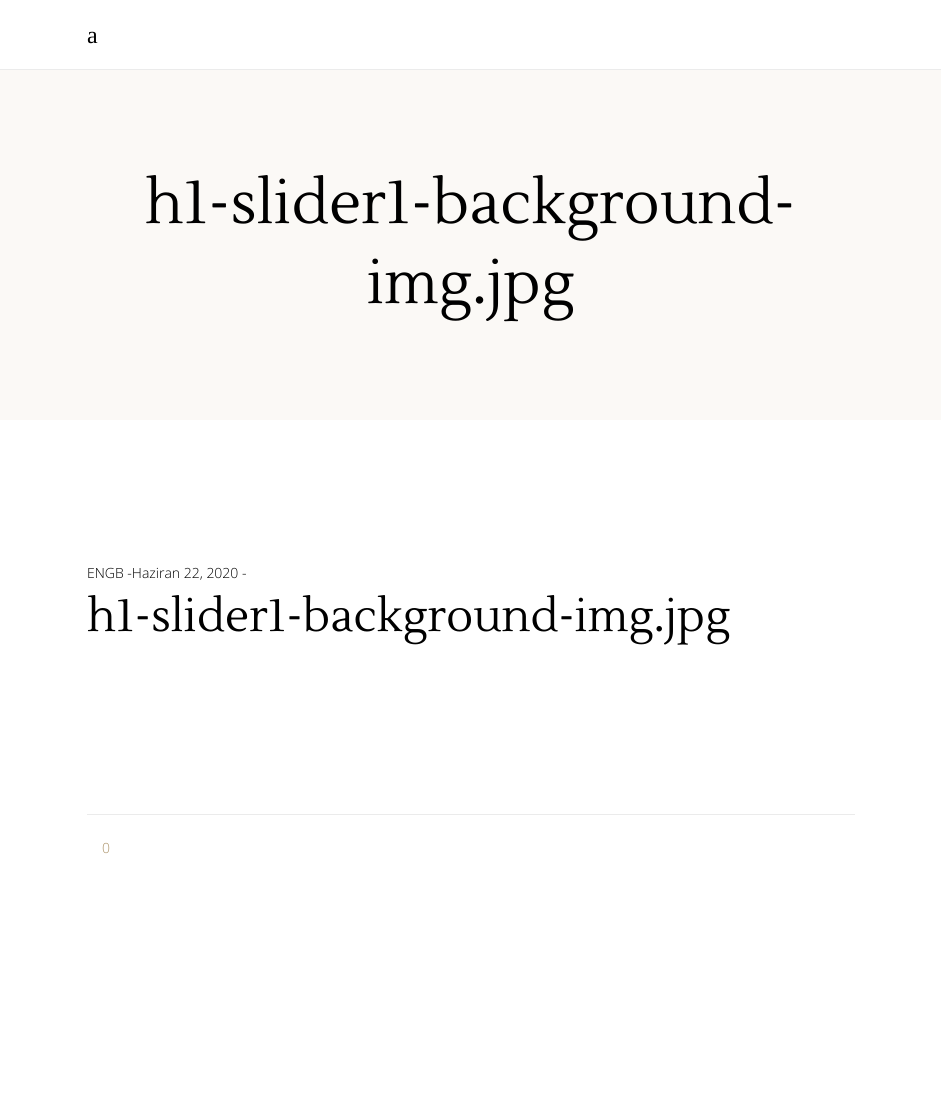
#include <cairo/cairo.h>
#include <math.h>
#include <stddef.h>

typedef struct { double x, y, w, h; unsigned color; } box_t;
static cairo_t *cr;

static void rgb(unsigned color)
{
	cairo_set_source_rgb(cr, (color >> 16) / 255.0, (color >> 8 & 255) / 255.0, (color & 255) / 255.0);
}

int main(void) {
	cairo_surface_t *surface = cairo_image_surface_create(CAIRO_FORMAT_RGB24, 941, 1105);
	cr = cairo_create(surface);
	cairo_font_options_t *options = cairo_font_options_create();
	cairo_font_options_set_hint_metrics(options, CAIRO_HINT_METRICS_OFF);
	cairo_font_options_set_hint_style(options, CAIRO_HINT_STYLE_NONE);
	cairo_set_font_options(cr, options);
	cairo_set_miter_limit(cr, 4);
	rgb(0xffffff);
	cairo_paint(cr);
	{
		static const box_t items[] = {
			{0, 69, 941, 1, 0xebebeb},
			{0, 70, 941, 350, 0xfbf9f6},
			{87, 814, 768, 1, 0xebebeb},
		};
		for (size_t i = 0; i < sizeof items / sizeof *items; i++) {
			rgb(items[i].color);
			cairo_rectangle(cr, items[i].x, items[i].y, items[i].w, items[i].h);
			cairo_fill(cr);
		}
	}
	cairo_select_font_face(cr, "Liberation Serif", CAIRO_FONT_SLANT_NORMAL, CAIRO_FONT_WEIGHT_NORMAL);
	cairo_set_font_size(cr, 24);
	rgb(0x000000);
	cairo_move_to(cr, 87, 43);
	cairo_show_text(cr, "a");
	cairo_select_font_face(cr, "Lustria", CAIRO_FONT_SLANT_NORMAL, CAIRO_FONT_WEIGHT_NORMAL);
	cairo_set_font_size(cr, 60);
	cairo_move_to(cr, 145, 223);
	cairo_show_text(cr, "h1-slider1-background-");
	cairo_move_to(cr, 367, 303);
	cairo_show_text(cr, "img.jpg");
	cairo_select_font_face(cr, "Open Sans Light", CAIRO_FONT_SLANT_NORMAL, CAIRO_FONT_WEIGHT_NORMAL);
	cairo_set_font_size(cr, 14);
	cairo_move_to(cr, 87, 578);
	cairo_show_text(cr, "ENGB -Haziran 22, 2020 -");
	cairo_select_font_face(cr, "Lustria", CAIRO_FONT_SLANT_NORMAL, CAIRO_FONT_WEIGHT_NORMAL);
	cairo_set_font_size(cr, 45);
	cairo_move_to(cr, 87, 631);
	cairo_show_text(cr, "h1-slider1-background-img.jpg");
	cairo_select_font_face(cr, "Open Sans Light", CAIRO_FONT_SLANT_NORMAL, CAIRO_FONT_WEIGHT_NORMAL);
	cairo_set_font_size(cr, 14);
	rgb(0xaa9166);
	cairo_move_to(cr, 102, 853);
	cairo_show_text(cr, "0");
	cairo_surface_write_to_png(surface, "page.png");
	cairo_font_options_destroy(options);
	cairo_destroy(cr);
	cairo_surface_destroy(surface);
	return 0;
}
